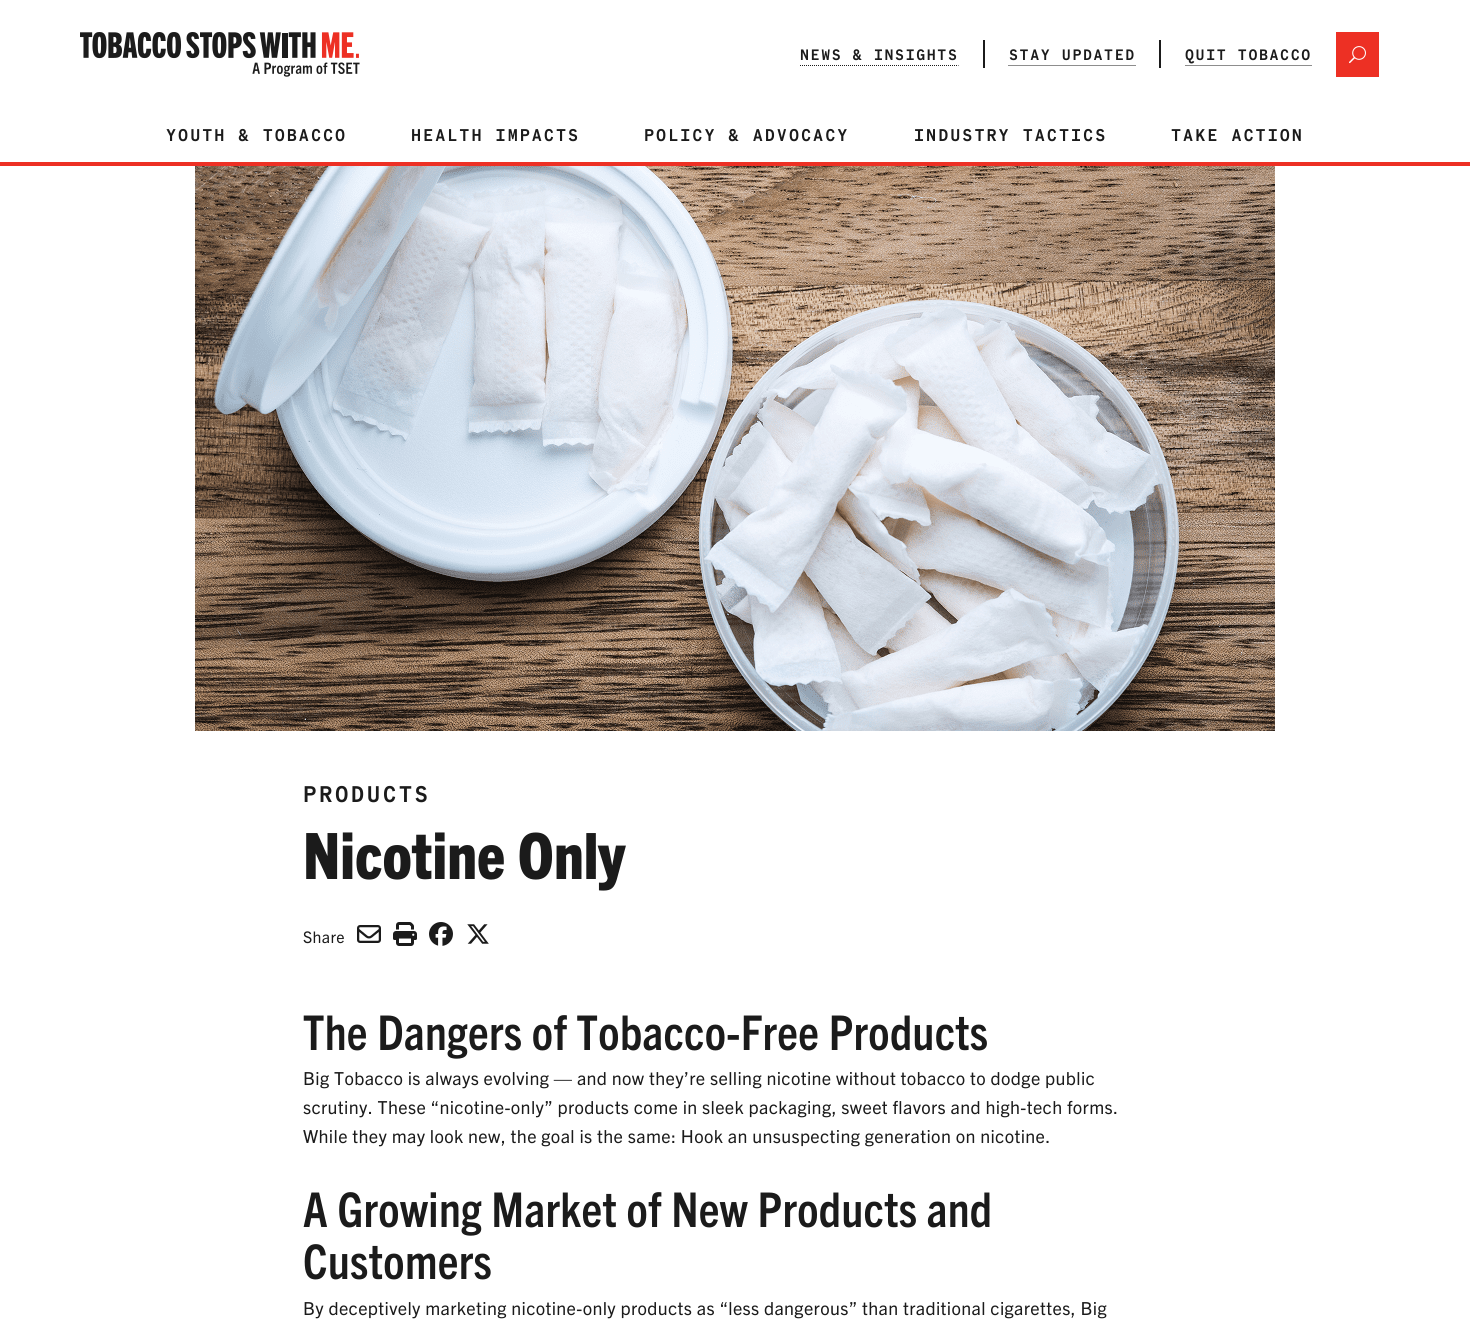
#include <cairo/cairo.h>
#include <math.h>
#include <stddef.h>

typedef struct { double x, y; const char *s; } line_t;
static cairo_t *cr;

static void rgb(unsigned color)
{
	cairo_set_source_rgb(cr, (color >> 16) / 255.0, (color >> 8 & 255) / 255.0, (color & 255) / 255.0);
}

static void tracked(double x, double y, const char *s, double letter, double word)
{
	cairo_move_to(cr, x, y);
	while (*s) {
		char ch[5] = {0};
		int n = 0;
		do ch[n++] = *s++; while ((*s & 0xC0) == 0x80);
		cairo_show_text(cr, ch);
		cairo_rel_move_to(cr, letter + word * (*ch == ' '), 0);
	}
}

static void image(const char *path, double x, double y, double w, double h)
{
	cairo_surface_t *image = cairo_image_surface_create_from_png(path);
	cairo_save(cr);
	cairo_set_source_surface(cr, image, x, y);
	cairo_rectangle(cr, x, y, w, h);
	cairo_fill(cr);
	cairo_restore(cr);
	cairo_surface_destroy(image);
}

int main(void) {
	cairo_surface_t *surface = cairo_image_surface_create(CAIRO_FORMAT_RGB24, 1470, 1337);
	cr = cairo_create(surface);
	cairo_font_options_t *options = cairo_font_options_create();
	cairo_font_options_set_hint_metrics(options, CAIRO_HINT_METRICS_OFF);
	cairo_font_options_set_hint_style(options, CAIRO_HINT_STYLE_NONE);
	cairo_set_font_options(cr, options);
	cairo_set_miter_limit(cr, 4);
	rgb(0xffffff);
	cairo_paint(cr);
	image("img/1.png", 80, 32, 280, 45);
	rgb(0x1b1b1b);
	cairo_rectangle(cr, 983, 40, 2, 28);
	cairo_fill(cr);
	cairo_new_path(cr);
	cairo_move_to(cr, 800, 65.5);
	cairo_line_to(cr, 958.5, 65.5);
	cairo_set_line_width(cr, 1);
	cairo_set_dash(cr, (double[]){1, 1}, 2, 0);
	cairo_stroke(cr);
	cairo_rectangle(cr, 1159, 40, 2, 28);
	cairo_fill(cr);
	cairo_new_path(cr);
	cairo_move_to(cr, 1008.5, 65.5);
	cairo_line_to(cr, 1135.5, 65.5);
	cairo_stroke(cr);
	cairo_new_path(cr);
	cairo_move_to(cr, 1185.5, 65.5);
	cairo_line_to(cr, 1312, 65.5);
	cairo_stroke(cr);
	rgb(0xed3024);
	cairo_rectangle(cr, 1336, 32, 43, 45);
	cairo_fill(cr);
	image("img/2.png", 1349, 46, 17, 18);
	cairo_rectangle(cr, 0, 162, 1470, 4);
	cairo_fill(cr);
	image("img/3.png", 195, 166, 1080, 565);
	image("img/4.png", 357, 925, 24, 18);
	image("img/5.png", 393, 922, 24, 24);
	image("img/6.png", 429, 922, 24, 24);
	image("img/7.png", 467, 924, 22, 20);
	cairo_select_font_face(cr, "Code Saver", CAIRO_FONT_SLANT_NORMAL, CAIRO_FONT_WEIGHT_BOLD);
	cairo_set_font_size(cr, 16);
	rgb(0x1b1b1b);
	{
		static const line_t items[] = {
			{800, 60, "NEWS & INSIGHTS"},
			{1009, 60, "STAY UPDATED"},
			{1185, 60, "QUIT TOBACCO"},
		};
		for (size_t i = 0; i < sizeof items / sizeof *items; i++) {
			tracked(items[i].x, items[i].y, items[i].s, 1.6, 0);
		}
	}
	cairo_set_font_size(cr, 18);
	{
		static const line_t items[] = {
			{166, 141, "YOUTH & TOBACCO"},
			{411, 141, "HEALTH IMPACTS"},
			{644, 141, "POLICY & ADVOCACY"},
			{914, 141, "INDUSTRY TACTICS"},
			{1171, 141, "TAKE ACTION"},
		};
		for (size_t i = 0; i < sizeof items / sizeof *items; i++) {
			tracked(items[i].x, items[i].y, items[i].s, 2, 0);
		}
	}
	cairo_set_font_size(cr, 24);
	tracked(303, 802, "PRODUCTS", 2.5, 0);
	cairo_select_font_face(cr, "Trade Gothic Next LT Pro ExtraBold", CAIRO_FONT_SLANT_NORMAL, CAIRO_FONT_WEIGHT_NORMAL);
	cairo_set_font_size(cr, 64);
	cairo_move_to(cr, 303, 879);
	cairo_show_text(cr, "Nicotine Only");
	cairo_select_font_face(cr, "Trade Gothic Next LT Pro", CAIRO_FONT_SLANT_NORMAL, CAIRO_FONT_WEIGHT_NORMAL);
	cairo_set_font_size(cr, 16);
	tracked(303, 943, "Share", 0.35, 0);
	cairo_select_font_face(cr, "Trade Gothic Next LT Pro", CAIRO_FONT_SLANT_NORMAL, CAIRO_FONT_WEIGHT_BOLD);
	cairo_set_font_size(cr, 48);
	tracked(303, 1050, "The Dangers of Tobacco-Free Products", 0.35, 0);
	cairo_select_font_face(cr, "Trade Gothic Next LT Pro", CAIRO_FONT_SLANT_NORMAL, CAIRO_FONT_WEIGHT_NORMAL);
	cairo_set_font_size(cr, 18);
	{
		static const line_t items[] = {
			{303, 1085, "Big Tobacco is always evolving — and now they’re selling nicotine without tobacco to dodge public"},
			{303, 1114, "scrutiny. These “nicotine-only” products come in sleek packaging, sweet flavors and high-tech forms."},
			{303, 1143, "While they may look new, the goal is the same: Hook an unsuspecting generation on nicotine."},
		};
		for (size_t i = 0; i < sizeof items / sizeof *items; i++) {
			tracked(items[i].x, items[i].y, items[i].s, 0.35, 0);
		}
	}
	cairo_select_font_face(cr, "Trade Gothic Next LT Pro", CAIRO_FONT_SLANT_NORMAL, CAIRO_FONT_WEIGHT_BOLD);
	cairo_set_font_size(cr, 48);
	tracked(303, 1227, "A Growing Market of New Products and", 0.35, 0);
	tracked(303, 1279, "Customers", 0.35, 0);
	cairo_select_font_face(cr, "Trade Gothic Next LT Pro", CAIRO_FONT_SLANT_NORMAL, CAIRO_FONT_WEIGHT_NORMAL);
	cairo_set_font_size(cr, 18);
	tracked(303, 1315, "By deceptively marketing nicotine-only products as “less dangerous” than traditional cigarettes, Big", 0.35, 0);
	cairo_surface_write_to_png(surface, "page.png");
	cairo_font_options_destroy(options);
	cairo_destroy(cr);
	cairo_surface_destroy(surface);
	return 0;
}
